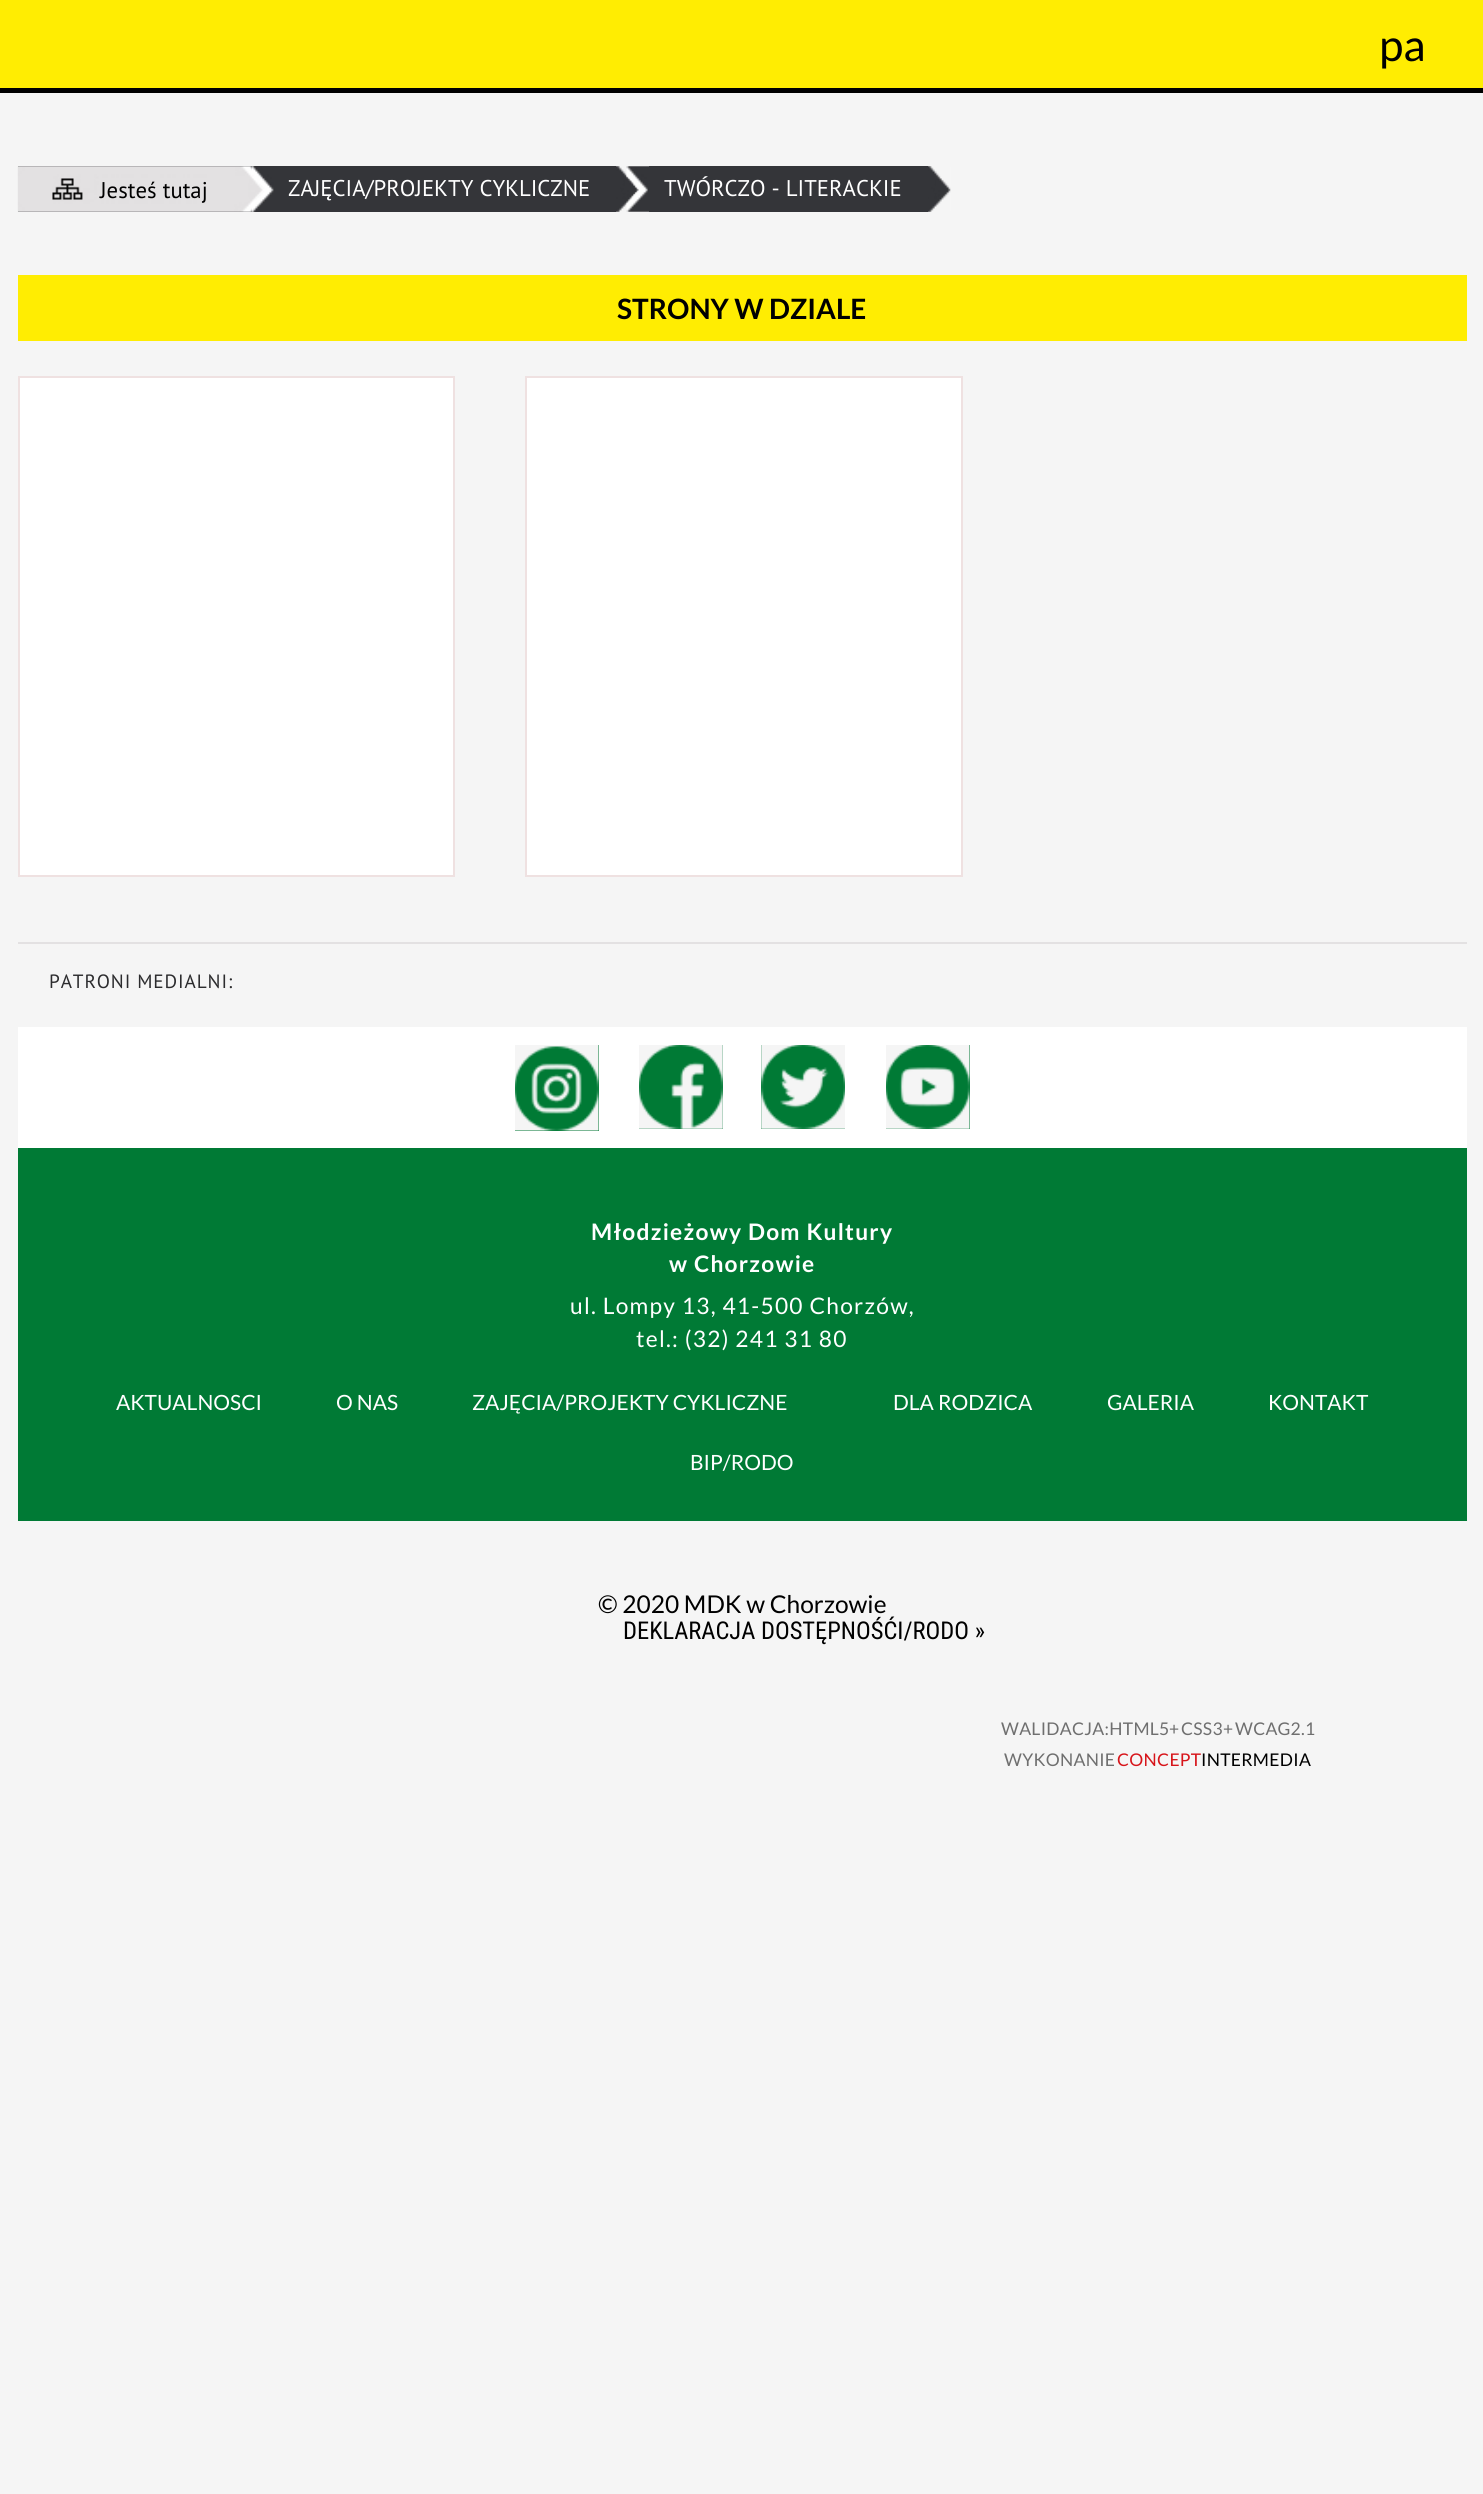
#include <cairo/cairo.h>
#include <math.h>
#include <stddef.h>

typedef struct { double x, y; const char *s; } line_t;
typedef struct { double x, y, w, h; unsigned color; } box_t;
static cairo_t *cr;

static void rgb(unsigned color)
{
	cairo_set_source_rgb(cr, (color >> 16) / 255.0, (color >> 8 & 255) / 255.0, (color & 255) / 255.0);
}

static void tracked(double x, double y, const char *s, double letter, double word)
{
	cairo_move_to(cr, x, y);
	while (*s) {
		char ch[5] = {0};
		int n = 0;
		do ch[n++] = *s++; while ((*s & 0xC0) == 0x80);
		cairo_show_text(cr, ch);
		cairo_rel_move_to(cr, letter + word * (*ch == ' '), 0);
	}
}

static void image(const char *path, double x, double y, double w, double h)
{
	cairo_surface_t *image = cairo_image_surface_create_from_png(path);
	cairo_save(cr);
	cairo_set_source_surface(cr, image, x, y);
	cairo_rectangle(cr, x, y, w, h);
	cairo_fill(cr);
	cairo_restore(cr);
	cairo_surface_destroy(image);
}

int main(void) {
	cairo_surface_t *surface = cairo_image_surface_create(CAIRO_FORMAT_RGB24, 1483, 2494);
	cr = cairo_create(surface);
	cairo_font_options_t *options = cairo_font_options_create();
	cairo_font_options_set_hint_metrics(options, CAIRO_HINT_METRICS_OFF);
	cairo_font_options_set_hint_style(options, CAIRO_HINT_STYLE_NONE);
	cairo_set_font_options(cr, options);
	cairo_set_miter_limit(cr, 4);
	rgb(0xf5f5f5);
	cairo_paint(cr);
	{
		static const box_t items[] = {
			{0, 0, 1483, 88, 0xffed02},
			{0, 88, 1483, 5, 0x000000},
			{18, 166, 598, 46, 0x343539},
		};
		for (size_t i = 0; i < sizeof items / sizeof *items; i++) {
			rgb(items[i].color);
			cairo_rectangle(cr, items[i].x, items[i].y, items[i].w, items[i].h);
			cairo_fill(cr);
		}
	}
	image("img/1.png", 17, 166, 255, 46);
	image("img/2.png", 252, 166, 22, 46);
	image("img/3.png", 616, 166, 23, 46);
	cairo_rectangle(cr, 649, 166, 279, 46);
	cairo_fill(cr);
	image("img/4.png", 626, 166, 23, 46);
	image("img/5.png", 928, 166, 23, 46);
	rgb(0xffed02);
	cairo_rectangle(cr, 18, 275, 1449, 66);
	cairo_fill(cr);
	rgb(0xffffff);
	cairo_rectangle(cr, 19, 377, 435, 499);
	cairo_fill_preserve(cr);
	rgb(0xefe1e1);
	cairo_stroke(cr);
	rgb(0xffffff);
	cairo_rectangle(cr, 526, 377, 436, 499);
	cairo_fill_preserve(cr);
	rgb(0xefe1e1);
	cairo_stroke(cr);
	{
		static const box_t items[] = {
			{18, 942, 1449, 2, 0xe3e1e2},
			{18, 1148, 1449, 373, 0x007a35},
			{18, 1027, 1449, 121, 0xffffff},
			{515, 1045, 84, 86, 0x007a35},
		};
		for (size_t i = 0; i < sizeof items / sizeof *items; i++) {
			rgb(items[i].color);
			cairo_rectangle(cr, items[i].x, items[i].y, items[i].w, items[i].h);
			cairo_fill(cr);
		}
	}
	image("img/6.png", 515, 1045, 84, 86);
	cairo_rectangle(cr, 639, 1045, 84, 84);
	cairo_fill(cr);
	image("img/7.png", 639, 1045, 84, 84);
	cairo_rectangle(cr, 761, 1045, 84, 84);
	cairo_fill(cr);
	image("img/8.png", 761, 1045, 84, 84);
	cairo_rectangle(cr, 886, 1045, 84, 84);
	cairo_fill(cr);
	image("img/9.png", 886, 1045, 84, 84);
	cairo_select_font_face(cr, "Lato", CAIRO_FONT_SLANT_NORMAL, CAIRO_FONT_WEIGHT_NORMAL);
	cairo_set_font_size(cr, 44);
	rgb(0x000000);
	cairo_move_to(cr, 1379, 61);
	cairo_show_text(cr, "pa");
	cairo_select_font_face(cr, "PT Sans", CAIRO_FONT_SLANT_NORMAL, CAIRO_FONT_WEIGHT_NORMAL);
	cairo_set_font_size(cr, 22.75);
	cairo_move_to(cr, 100, 198);
	cairo_show_text(cr, "Jesteś tutaj");
	rgb(0xffffff);
	cairo_move_to(cr, 288, 196);
	cairo_show_text(cr, "ZAJĘCIA/PROJEKTY CYKLICZNE");
	cairo_move_to(cr, 664, 196);
	cairo_show_text(cr, "TWÓRCZO - LITERACKIE");
	cairo_select_font_face(cr, "Lato", CAIRO_FONT_SLANT_NORMAL, CAIRO_FONT_WEIGHT_BOLD);
	cairo_set_font_size(cr, 28);
	rgb(0x000000);
	cairo_move_to(cr, 617, 319);
	cairo_show_text(cr, "STRONY W DZIALE");
	cairo_select_font_face(cr, "PT Sans", CAIRO_FONT_SLANT_NORMAL, CAIRO_FONT_WEIGHT_NORMAL);
	cairo_set_font_size(cr, 19.25);
	rgb(0x2c2c2e);
	tracked(49, 988, "PATRONI MEDIALNI:", 0.9, 0);
	cairo_select_font_face(cr, "Lato", CAIRO_FONT_SLANT_NORMAL, CAIRO_FONT_WEIGHT_BOLD);
	cairo_set_font_size(cr, 22.75);
	rgb(0xffffff);
	tracked(591, 1240, "Młodzieżowy Dom Kultury", 1.25, 0);
	tracked(669, 1272, "w Chorzowie", 1.25, 0);
	cairo_select_font_face(cr, "Lato", CAIRO_FONT_SLANT_NORMAL, CAIRO_FONT_WEIGHT_NORMAL);
	tracked(570, 1314, "ul. Lompy 13, 41-500 Chorzów,", 1.25, 0);
	tracked(636, 1347, "tel.: (32) 241 31 80", 1.25, 0);
	cairo_set_font_size(cr, 21);
	{
		static const line_t items[] = {
			{116, 1410, "AKTUALNOSCI"},
			{336, 1410, "O NAS"},
			{472, 1410, "ZAJĘCIA/PROJEKTY CYKLICZNE"},
			{893, 1410, "DLA RODZICA"},
			{1107, 1410, "GALERIA"},
			{1268, 1410, "KONTAKT"},
			{690, 1470, "BIP/RODO"},
		};
		for (size_t i = 0; i < sizeof items / sizeof *items; i++) {
			cairo_move_to(cr, items[i].x, items[i].y);
			cairo_show_text(cr, items[i].s);
		}
	}
	cairo_set_font_size(cr, 24.5);
	rgb(0x000000);
	cairo_move_to(cr, 598, 1613);
	cairo_show_text(cr, "© 2020 MDK w Chorzowie");
	cairo_select_font_face(cr, "Roboto Condensed", CAIRO_FONT_SLANT_NORMAL, CAIRO_FONT_WEIGHT_NORMAL);
	cairo_move_to(cr, 623, 1639);
	cairo_show_text(cr, "DEKLARACJA DOSTĘPNOŚĆI/RODO »");
	cairo_select_font_face(cr, "Lato", CAIRO_FONT_SLANT_NORMAL, CAIRO_FONT_WEIGHT_NORMAL);
	cairo_set_font_size(cr, 17.5);
	rgb(0x6f6f6f);
	{
		static const line_t items[] = {
			{1001, 1735, "WALIDACJA:HTML5"},
			{1169, 1735, "+"},
			{1181, 1735, "CSS3"},
			{1223, 1735, "+"},
		};
		for (size_t i = 0; i < sizeof items / sizeof *items; i++) {
			tracked(items[i].x, items[i].y, items[i].s, 0.3, 0);
		}
	}
	tracked(1235, 1735, "WCAG 2.1", 0.3, -4);
	tracked(1004, 1766, "WYKONANIE", 0.3, 0);
	rgb(0xd7141a);
	tracked(1117, 1766, "CONCEPT", 0.3, 0);
	rgb(0x000000);
	tracked(1201, 1766, "INTERMEDIA", 0.3, 0);
	cairo_surface_write_to_png(surface, "page.png");
	cairo_font_options_destroy(options);
	cairo_destroy(cr);
	cairo_surface_destroy(surface);
	return 0;
}
